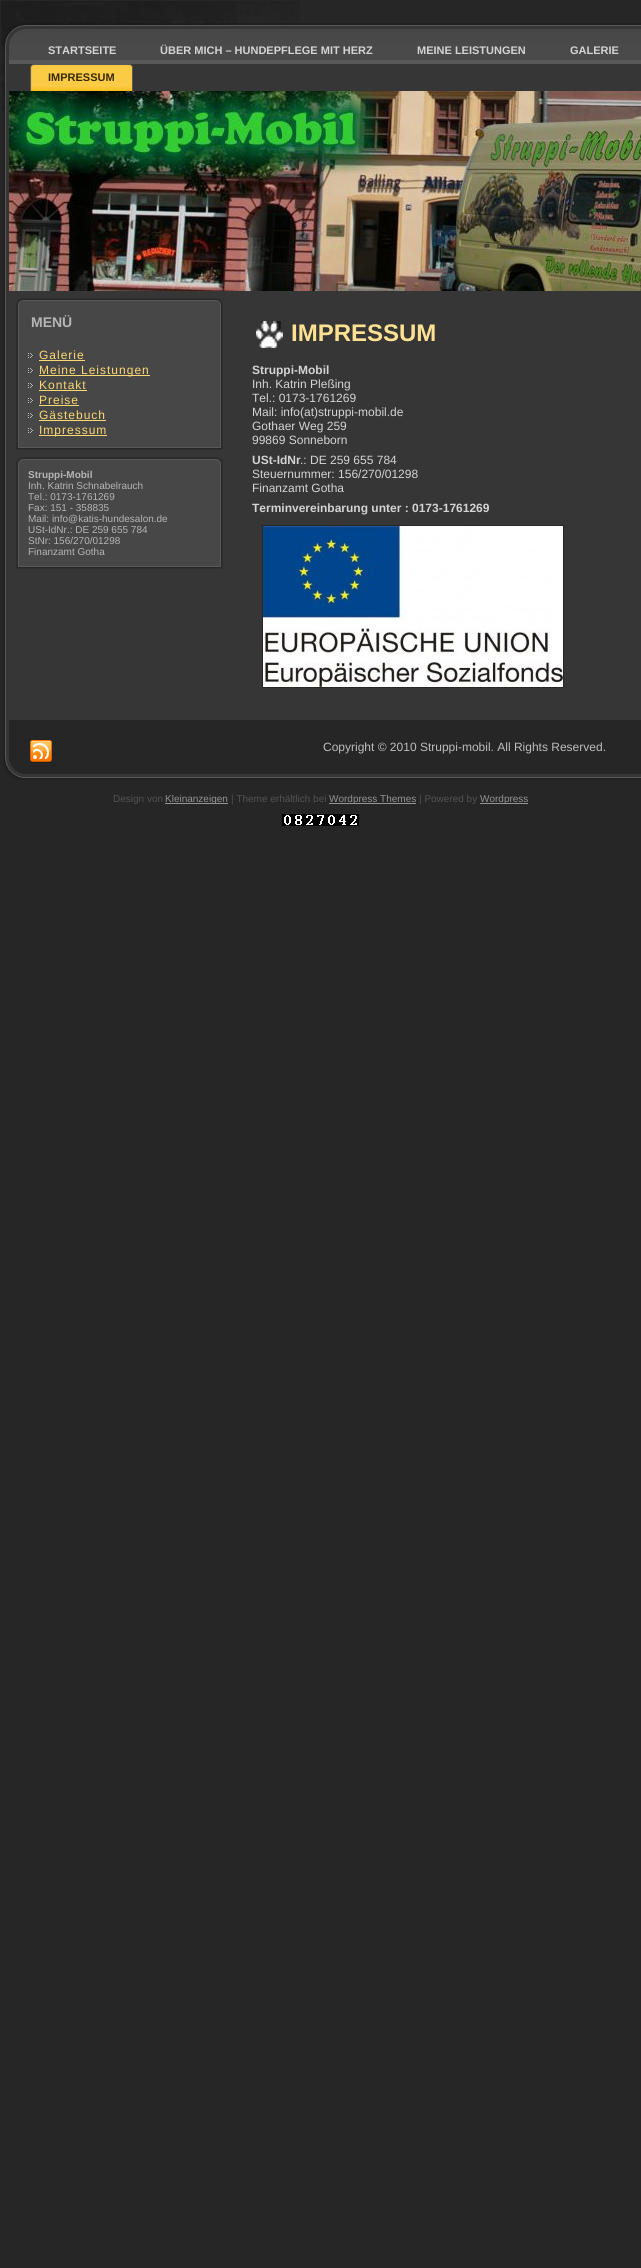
#include <cairo/cairo.h>
#include <math.h>
#include <stddef.h>

typedef struct { double x, y; const char *s; } line_t;
typedef struct { double x, y, w, h; unsigned color; } box_t;
static cairo_t *cr;

static void rgb(unsigned color)
{
	cairo_set_source_rgb(cr, (color >> 16) / 255.0, (color >> 8 & 255) / 255.0, (color & 255) / 255.0);
}

static void tracked(double x, double y, const char *s, double letter, double word)
{
	cairo_move_to(cr, x, y);
	while (*s) {
		char ch[5] = {0};
		int n = 0;
		do ch[n++] = *s++; while ((*s & 0xC0) == 0x80);
		cairo_show_text(cr, ch);
		cairo_rel_move_to(cr, letter + word * (*ch == ' '), 0);
	}
}

static void image(const char *path, double x, double y, double w, double h)
{
	cairo_surface_t *image = cairo_image_surface_create_from_png(path);
	cairo_save(cr);
	cairo_set_source_surface(cr, image, x, y);
	cairo_rectangle(cr, x, y, w, h);
	cairo_fill(cr);
	cairo_restore(cr);
	cairo_surface_destroy(image);
}

int main(void) {
	cairo_surface_t *surface = cairo_image_surface_create(CAIRO_FORMAT_RGB24, 641, 2268);
	cr = cairo_create(surface);
	cairo_font_options_t *options = cairo_font_options_create();
	cairo_font_options_set_hint_metrics(options, CAIRO_HINT_METRICS_OFF);
	cairo_font_options_set_hint_style(options, CAIRO_HINT_STYLE_NONE);
	cairo_set_font_options(cr, options);
	cairo_set_miter_limit(cr, 4);
	rgb(0x262626);
	cairo_paint(cr);
	image("img/1.png", 1, 1, 299, 110);
	image("img/2.png", 3, 23, 38, 38);
	image("img/3.png", 41, 23, 600, 6);
	image("img/4.png", 3, 61, 38, 681);
	image("img/5.png", 9, 29, 632, 35);
	rgb(0x363636);
	cairo_rectangle(cr, 41, 64, 600, 656);
	cairo_fill(cr);
	image("img/6.png", 30, 64, 99, 27);
	image("img/7.png", 129, 64, 4, 27);
	image("img/8.png", 9, 91, 632, 200);
	image("img/9.png", 16, 298, 13, 13);
	image("img/10.png", 29, 298, 181, 13);
	image("img/11.png", 210, 298, 13, 13);
	image("img/12.png", 16, 311, 13, 126);
	rgb(0x474747);
	cairo_rectangle(cr, 29, 311, 181, 126);
	cairo_fill(cr);
	image("img/13.png", 210, 311, 13, 126);
	image("img/14.png", 28, 353, 5, 5);
	rgb(0xfcd873);
	cairo_rectangle(cr, 39, 360, 46, 1);
	cairo_fill(cr);
	image("img/14.png", 28, 368, 5, 5);
	cairo_rectangle(cr, 39, 375, 111, 1);
	cairo_fill(cr);
	image("img/14.png", 28, 383, 5, 5);
	cairo_rectangle(cr, 39, 390, 48, 1);
	cairo_fill(cr);
	image("img/14.png", 28, 398, 5, 5);
	cairo_rectangle(cr, 39, 405, 40, 1);
	cairo_fill(cr);
	image("img/14.png", 28, 413, 5, 5);
	cairo_rectangle(cr, 39, 420, 67, 1);
	cairo_fill(cr);
	image("img/14.png", 28, 428, 5, 5);
	cairo_rectangle(cr, 39, 435, 68, 1);
	cairo_fill(cr);
	image("img/15.png", 16, 437, 13, 13);
	image("img/16.png", 29, 437, 181, 13);
	image("img/17.png", 210, 437, 13, 13);
	image("img/9.png", 16, 457, 13, 13);
	image("img/10.png", 29, 457, 181, 13);
	image("img/11.png", 210, 457, 13, 13);
	image("img/18.png", 16, 470, 13, 86);
	rgb(0x474747);
	cairo_rectangle(cr, 29, 470, 181, 86);
	cairo_fill(cr);
	image("img/19.png", 210, 470, 13, 86);
	image("img/15.png", 16, 556, 13, 13);
	image("img/16.png", 29, 556, 181, 13);
	image("img/17.png", 210, 556, 13, 13);
	image("img/20.png", 256, 321, 27, 27);
	cairo_rectangle(cr, 262.5, 525.5, 301, 162);
	rgb(0x262626);
	cairo_set_line_width(cr, 1);
	cairo_stroke(cr);
	image("img/21.png", 263, 526, 300, 161);
	image("img/24.png", 3, 742, 38, 38);
	image("img/22.png", 9, 720, 632, 54);
	image("img/23.png", 29, 740, 24, 23);
	image("img/25.png", 41, 774, 600, 6);
	{
		static const box_t items[] = {
			{165, 803, 63, 1, 0x949494},
			{329, 803, 87, 1, 0x949494},
			{480, 803, 48, 1, 0x949494},
		};
		for (size_t i = 0; i < sizeof items / sizeof *items; i++) {
			rgb(items[i].color);
			cairo_rectangle(cr, items[i].x, items[i].y, items[i].w, items[i].h);
			cairo_fill(cr);
		}
	}
	image("img/26.png", 282, 814, 11, 12);
	image("img/27.png", 293, 814, 11, 12);
	image("img/28.png", 304, 814, 11, 12);
	image("img/29.png", 315, 814, 11, 12);
	image("img/26.png", 326, 814, 11, 12);
	image("img/30.png", 337, 814, 11, 12);
	image("img/28.png", 348, 814, 11, 12);
	cairo_select_font_face(cr, "Liberation Sans", CAIRO_FONT_SLANT_NORMAL, CAIRO_FONT_WEIGHT_BOLD);
	cairo_set_font_size(cr, 11);
	rgb(0xd4d4d4);
	{
		static const line_t items[] = {
			{48, 54, "STARTSEITE"},
			{160, 54, "ÜBER MICH – HUNDEPFLEGE MIT HERZ"},
			{417, 54, "MEINE LEISTUNGEN"},
			{570, 54, "GALERIE"},
		};
		for (size_t i = 0; i < sizeof items / sizeof *items; i++) {
			cairo_move_to(cr, items[i].x, items[i].y);
			cairo_show_text(cr, items[i].s);
		}
	}
	rgb(0x372901);
	cairo_move_to(cr, 48, 81);
	cairo_show_text(cr, "IMPRESSUM");
	cairo_set_font_size(cr, 14);
	rgb(0xb5b5b5);
	cairo_move_to(cr, 31, 327);
	cairo_show_text(cr, "MENÜ");
	cairo_select_font_face(cr, "Liberation Sans", CAIRO_FONT_SLANT_NORMAL, CAIRO_FONT_WEIGHT_NORMAL);
	cairo_set_font_size(cr, 12);
	rgb(0xfcd873);
	{
		static const line_t items[] = {
			{39, 359, "Galerie"},
			{39, 374, "Meine Leistungen"},
			{39, 389, "Kontakt"},
			{39, 404, "Preise"},
			{39, 419, "Gästebuch"},
			{39, 434, "Impressum"},
		};
		for (size_t i = 0; i < sizeof items / sizeof *items; i++) {
			tracked(items[i].x, items[i].y, items[i].s, 1, 0);
		}
	}
	cairo_select_font_face(cr, "Liberation Sans", CAIRO_FONT_SLANT_NORMAL, CAIRO_FONT_WEIGHT_BOLD);
	cairo_set_font_size(cr, 10);
	rgb(0xb5b5b5);
	cairo_move_to(cr, 28, 478);
	cairo_show_text(cr, "Struppi-Mobil");
	cairo_select_font_face(cr, "Liberation Sans", CAIRO_FONT_SLANT_NORMAL, CAIRO_FONT_WEIGHT_NORMAL);
	{
		static const line_t items[] = {
			{28, 489, "Inh. Katrin Schnabelrauch"},
			{28, 500, "Tel.: 0173-1761269"},
			{28, 511, "Fax: 151 - 358835"},
			{28, 522, "Mail: info@katis-hundesalon.de"},
			{28, 533, "USt-IdNr.: DE 259 655 784"},
			{28, 544, "StNr: 156/270/01298"},
			{28, 555, "Finanzamt Gotha"},
		};
		for (size_t i = 0; i < sizeof items / sizeof *items; i++) {
			cairo_move_to(cr, items[i].x, items[i].y);
			cairo_show_text(cr, items[i].s);
		}
	}
	cairo_select_font_face(cr, "Liberation Sans", CAIRO_FONT_SLANT_NORMAL, CAIRO_FONT_WEIGHT_BOLD);
	cairo_set_font_size(cr, 24);
	rgb(0xfde091);
	cairo_move_to(cr, 291, 341);
	cairo_show_text(cr, "IMPRESSUM");
	cairo_set_font_size(cr, 12);
	rgb(0xd4d4d4);
	cairo_move_to(cr, 252, 374);
	cairo_show_text(cr, "Struppi-Mobil");
	cairo_select_font_face(cr, "Liberation Sans", CAIRO_FONT_SLANT_NORMAL, CAIRO_FONT_WEIGHT_NORMAL);
	{
		static const line_t items[] = {
			{252, 388, "Inh. Katrin Pleßing"},
			{252, 402, "Tel.: 0173-1761269"},
			{252, 416, "Mail: info(at)struppi-mobil.de"},
			{252, 430, "Gothaer Weg 259"},
			{252, 444, "99869 Sonneborn"},
		};
		for (size_t i = 0; i < sizeof items / sizeof *items; i++) {
			cairo_move_to(cr, items[i].x, items[i].y);
			cairo_show_text(cr, items[i].s);
		}
	}
	cairo_select_font_face(cr, "Liberation Sans", CAIRO_FONT_SLANT_NORMAL, CAIRO_FONT_WEIGHT_BOLD);
	cairo_move_to(cr, 252, 464);
	cairo_show_text(cr, "USt-IdNr");
	cairo_select_font_face(cr, "Liberation Sans", CAIRO_FONT_SLANT_NORMAL, CAIRO_FONT_WEIGHT_NORMAL);
	{
		static const line_t items[] = {
			{300, 464, ".: DE 259 655 784"},
			{252, 478, "Steuernummer: 156/270/01298"},
			{252, 492, "Finanzamt Gotha"},
		};
		for (size_t i = 0; i < sizeof items / sizeof *items; i++) {
			cairo_move_to(cr, items[i].x, items[i].y);
			cairo_show_text(cr, items[i].s);
		}
	}
	cairo_select_font_face(cr, "Liberation Sans", CAIRO_FONT_SLANT_NORMAL, CAIRO_FONT_WEIGHT_BOLD);
	cairo_move_to(cr, 252, 512);
	cairo_show_text(cr, "Terminvereinbarung unter : 0173-1761269");
	cairo_select_font_face(cr, "Liberation Sans", CAIRO_FONT_SLANT_NORMAL, CAIRO_FONT_WEIGHT_NORMAL);
	rgb(0xbdbdbd);
	cairo_move_to(cr, 323, 751);
	cairo_show_text(cr, "Copyright © 2010 Struppi-mobil. All Rights Reserved.");
	cairo_set_font_size(cr, 10);
	rgb(0x525252);
	cairo_move_to(cr, 113, 802);
	cairo_show_text(cr, "Design von");
	rgb(0x949494);
	cairo_move_to(cr, 165, 802);
	cairo_show_text(cr, "Kleinanzeigen");
	rgb(0x525252);
	cairo_move_to(cr, 231, 802);
	cairo_show_text(cr, "| Theme erhältlich bei");
	rgb(0x949494);
	cairo_move_to(cr, 329, 802);
	cairo_show_text(cr, "Wordpress Themes");
	rgb(0x525252);
	cairo_move_to(cr, 419, 802);
	cairo_show_text(cr, "| Powered by");
	rgb(0x949494);
	cairo_move_to(cr, 480, 802);
	cairo_show_text(cr, "Wordpress");
	cairo_surface_write_to_png(surface, "page.png");
	cairo_font_options_destroy(options);
	cairo_destroy(cr);
	cairo_surface_destroy(surface);
	return 0;
}
